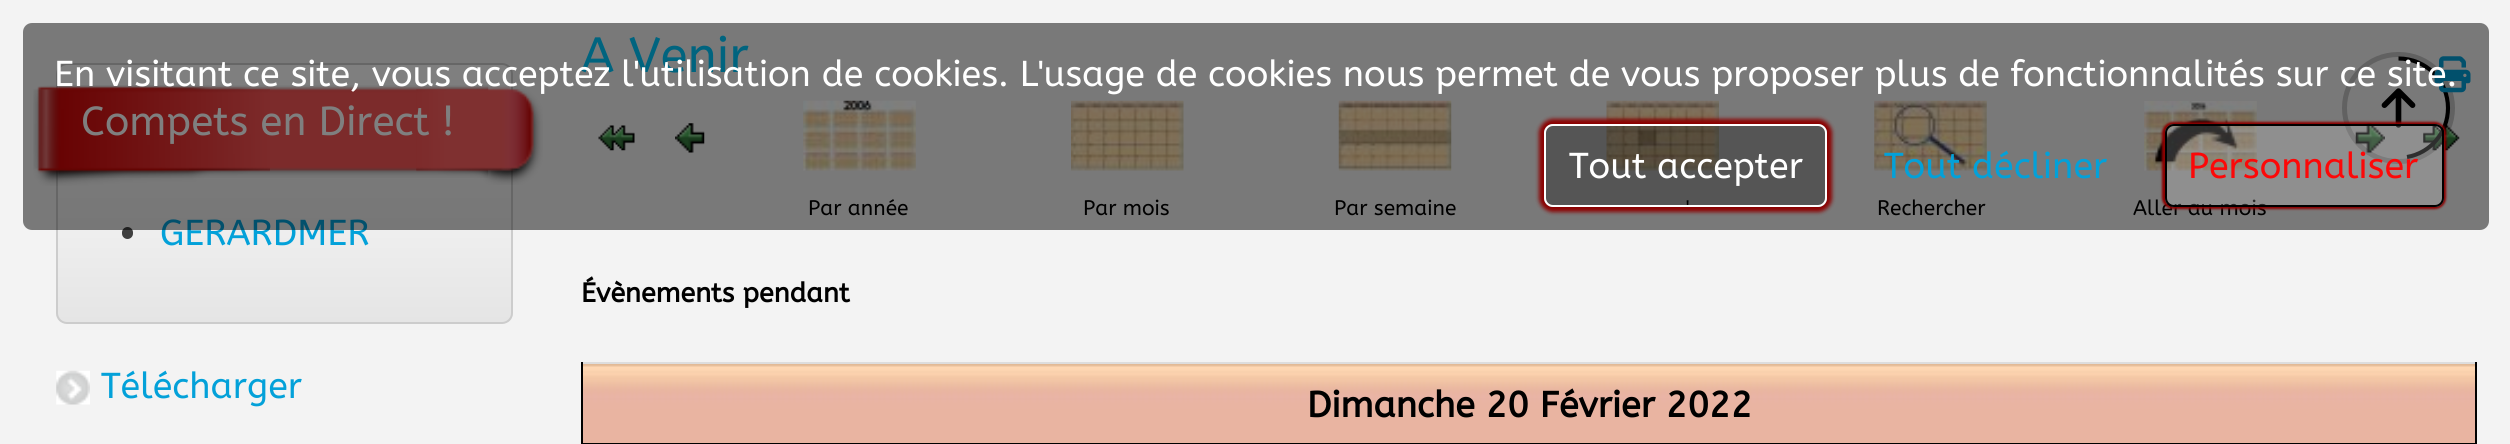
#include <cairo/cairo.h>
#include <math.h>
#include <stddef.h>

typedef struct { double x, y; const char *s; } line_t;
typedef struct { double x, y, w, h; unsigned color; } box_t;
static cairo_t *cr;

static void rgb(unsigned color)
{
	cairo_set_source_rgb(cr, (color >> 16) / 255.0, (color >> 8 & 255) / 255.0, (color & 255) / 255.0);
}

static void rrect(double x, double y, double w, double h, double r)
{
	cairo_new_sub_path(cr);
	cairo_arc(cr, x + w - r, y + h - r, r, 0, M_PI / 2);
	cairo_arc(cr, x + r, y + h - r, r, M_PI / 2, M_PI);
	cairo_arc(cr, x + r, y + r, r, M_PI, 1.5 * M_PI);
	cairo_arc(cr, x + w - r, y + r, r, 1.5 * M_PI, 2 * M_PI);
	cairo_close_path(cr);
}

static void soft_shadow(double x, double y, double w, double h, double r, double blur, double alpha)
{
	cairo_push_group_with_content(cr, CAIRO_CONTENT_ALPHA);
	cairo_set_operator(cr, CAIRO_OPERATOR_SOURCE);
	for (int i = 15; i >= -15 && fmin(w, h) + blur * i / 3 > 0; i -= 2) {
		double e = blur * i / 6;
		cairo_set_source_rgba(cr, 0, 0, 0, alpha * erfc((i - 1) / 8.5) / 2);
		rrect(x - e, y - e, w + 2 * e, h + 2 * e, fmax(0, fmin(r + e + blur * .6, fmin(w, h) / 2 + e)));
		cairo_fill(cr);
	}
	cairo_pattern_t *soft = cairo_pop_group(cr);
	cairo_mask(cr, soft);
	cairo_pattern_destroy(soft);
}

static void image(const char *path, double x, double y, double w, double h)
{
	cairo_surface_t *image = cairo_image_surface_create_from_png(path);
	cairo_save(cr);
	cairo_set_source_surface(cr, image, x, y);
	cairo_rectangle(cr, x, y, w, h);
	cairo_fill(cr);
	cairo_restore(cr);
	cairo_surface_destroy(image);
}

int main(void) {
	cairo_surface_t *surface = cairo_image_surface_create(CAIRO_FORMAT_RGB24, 2510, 444);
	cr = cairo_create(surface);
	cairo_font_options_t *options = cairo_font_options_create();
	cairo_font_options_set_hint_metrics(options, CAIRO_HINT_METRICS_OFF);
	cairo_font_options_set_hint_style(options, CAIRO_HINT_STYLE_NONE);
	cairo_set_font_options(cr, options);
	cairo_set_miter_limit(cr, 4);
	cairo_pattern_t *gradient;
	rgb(0xf3f3f3);
	cairo_paint(cr);
	cairo_save(cr);
	rrect(56, 63, 457, 261, 11);
	cairo_clip(cr);
	gradient = cairo_pattern_create_linear(285, 65, 285, 322);
	cairo_pattern_add_color_stop_rgba(gradient, 0, 1, 1, 1, 1);
	cairo_pattern_add_color_stop_rgba(gradient, 1, 0.898, 0.898, 0.898, 1);
	cairo_set_source(cr, gradient);
	cairo_pattern_destroy(gradient);
	cairo_rectangle(cr, 56, 65, 457, 257);
	cairo_fill(cr);
	cairo_restore(cr);
	rrect(57, 64, 455, 259, 10);
	rgb(0xcccccc);
	cairo_stroke(cr);
	image("img/1.png", 58, 85, 431, 93);
	image("img/2.png", 33, 85, 237, 101);
	image("img/3.png", 416, 85, 127, 100);
	rgb(0x3f3f3f);
	rrect(122, 227, 11, 12, 5.5);
	cairo_fill(cr);
	image("img/4.png", 56, 370, 34, 35);
	image("img/14.png", 2355, 123, 30, 30);
	image("img/15.png", 2423, 125, 37, 26);
	image("img/17.png", 2381, 88, 35, 40);
	rrect(2344.5, 54.5, 108, 107, 53.5);
	cairo_set_source_rgba(cr, 0, 0, 0, 0.2);
	cairo_set_line_width(cr, 5);
	cairo_stroke(cr);
	cairo_new_path(cr);
	cairo_move_to(cr, 2398.5, 58.5);
	cairo_curve_to(cr, 2426, 58.5, 2448, 80.5, 2448, 108);
	cairo_curve_to(cr, 2448, 132.5, 2430.5, 153, 2407, 157);
	rgb(0x000000);
	cairo_set_line_width(cr, 4.1);
	cairo_stroke(cr);
	image("img/5.png", 2434, 56, 37, 37);
	image("img/6.png", 598, 125, 37, 26);
	image("img/7.png", 675, 123, 30, 30);
	image("img/8.png", 803, 100, 113, 71);
	image("img/9.png", 1071, 100, 113, 71);
	image("img/10.png", 1338, 100, 114, 71);
	image("img/11.png", 1606, 100, 113, 71);
	image("img/12.png", 1874, 100, 113, 71);
	image("img/13.png", 2144, 101, 113, 70);
	{
		static const box_t items[] = {
			{581, 362, 1896, 2, 0xdddddd},
			{2475, 362, 2, 82, 0x000000},
			{581, 362, 2, 82, 0x000000},
			{583, 409, 1892, 34, 0xe9b4a1},
		};
		for (size_t i = 0; i < sizeof items / sizeof *items; i++) {
			rgb(items[i].color);
			cairo_rectangle(cr, items[i].x, items[i].y, items[i].w, items[i].h);
			cairo_fill(cr);
		}
	}
	image("img/16.png", 583, 364, 1892, 45);
	rgb(0x000000);
	cairo_rectangle(cr, 581, 443, 1896, 1);
	cairo_fill(cr);
	cairo_select_font_face(cr, "ABeeZee", CAIRO_FONT_SLANT_NORMAL, CAIRO_FONT_WEIGHT_NORMAL);
	cairo_set_font_size(cr, 40.5);
	rgb(0xffffff);
	cairo_move_to(cr, 81, 135);
	cairo_show_text(cr, "Compets en Direct !");
	cairo_set_font_size(cr, 36);
	rgb(0x03a1d9);
	cairo_move_to(cr, 160, 245);
	cairo_show_text(cr, "GERARDMER");
	cairo_move_to(cr, 101, 398);
	cairo_show_text(cr, "Télécharger");
	cairo_set_font_size(cr, 49.5);
	rgb(0x00c8ff);
	cairo_move_to(cr, 581, 72);
	cairo_show_text(cr, "A Venir");
	cairo_set_font_size(cr, 21);
	rgb(0x000000);
	{
		static const line_t items[] = {
			{808, 215, "Par année"},
			{1083, 215, "Par mois"},
			{1334, 215, "Par semaine"},
			{1686, 215, "'"},
			{1877, 215, "Rechercher"},
			{2133, 215, "Aller au mois"},
		};
		for (size_t i = 0; i < sizeof items / sizeof *items; i++) {
			cairo_move_to(cr, items[i].x, items[i].y);
			cairo_show_text(cr, items[i].s);
		}
	}
	cairo_select_font_face(cr, "ABeeZee", CAIRO_FONT_SLANT_NORMAL, CAIRO_FONT_WEIGHT_BOLD);
	cairo_set_font_size(cr, 27);
	cairo_move_to(cr, 581, 302);
	cairo_show_text(cr, "Évènements pendant");
	cairo_set_font_size(cr, 36);
	cairo_move_to(cr, 1307, 417);
	cairo_show_text(cr, "Dimanche 20 Février 2022");
	cairo_set_source_rgba(cr, 0, 0, 0, 0.5);
	rrect(23, 23, 2466, 207, 9);
	cairo_fill(cr);
	cairo_select_font_face(cr, "ABeeZee", CAIRO_FONT_SLANT_NORMAL, CAIRO_FONT_WEIGHT_NORMAL);
	rgb(0xffffff);
	cairo_move_to(cr, 54, 86);
	cairo_show_text(cr, "En visitant ce site, vous acceptez l'utilisation de cookies. L'usage de cookies nous permet de vous proposer plus de fonctionnalités sur ce site.");
	cairo_save(cr);
	cairo_set_fill_rule(cr, CAIRO_FILL_RULE_EVEN_ODD);
	cairo_new_path(cr);
	cairo_move_to(cr, 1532, 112);
	cairo_line_to(cr, 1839, 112);
	cairo_line_to(cr, 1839, 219);
	cairo_line_to(cr, 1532, 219);
	cairo_close_path(cr);
	cairo_move_to(cr, 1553, 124);
	cairo_line_to(cr, 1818, 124);
	cairo_curve_to(cr, 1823, 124, 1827, 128, 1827, 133);
	cairo_line_to(cr, 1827, 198);
	cairo_curve_to(cr, 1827, 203, 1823, 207, 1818, 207);
	cairo_line_to(cr, 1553, 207);
	cairo_curve_to(cr, 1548, 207, 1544, 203, 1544, 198);
	cairo_line_to(cr, 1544, 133);
	cairo_curve_to(cr, 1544, 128, 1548, 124, 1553, 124);
	cairo_close_path(cr);
	cairo_clip(cr);
	rgb(0x8c0101);
	soft_shadow(1539, 119, 293, 93, 14, 2, 1);
	cairo_restore(cr);
	cairo_set_source_rgba(cr, 0.008, 0.008, 0.012, 0.3);
	rrect(1545, 125, 281, 81, 8);
	cairo_fill_preserve(cr);
	rgb(0xffffff);
	cairo_set_line_width(cr, 2);
	cairo_stroke(cr);
	cairo_move_to(cr, 1569, 178);
	cairo_show_text(cr, "Tout accepter");
	rgb(0x03a1d9);
	cairo_move_to(cr, 1884, 178);
	cairo_show_text(cr, "Tout décliner");
	cairo_save(cr);
	cairo_set_fill_rule(cr, CAIRO_FILL_RULE_EVEN_ODD);
	cairo_new_path(cr);
	cairo_move_to(cr, 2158, 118);
	cairo_line_to(cr, 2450, 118);
	cairo_line_to(cr, 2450, 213);
	cairo_line_to(cr, 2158, 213);
	cairo_close_path(cr);
	cairo_move_to(cr, 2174, 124);
	cairo_line_to(cr, 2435, 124);
	cairo_curve_to(cr, 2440, 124, 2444, 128, 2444, 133);
	cairo_line_to(cr, 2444, 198);
	cairo_curve_to(cr, 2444, 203, 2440, 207, 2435, 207);
	cairo_line_to(cr, 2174, 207);
	cairo_curve_to(cr, 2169, 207, 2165, 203, 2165, 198);
	cairo_line_to(cr, 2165, 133);
	cairo_curve_to(cr, 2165, 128, 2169, 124, 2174, 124);
	cairo_close_path(cr);
	cairo_clip(cr);
	rgb(0x8c0101);
	soft_shadow(2162, 122, 284, 87, 11, 1, 1);
	cairo_restore(cr);
	cairo_set_source_rgba(cr, 0.902, 0.902, 0.902, 0.2);
	rrect(2166, 125, 277, 81, 8);
	cairo_fill_preserve(cr);
	rgb(0x000000);
	cairo_stroke(cr);
	rgb(0xfc0808);
	cairo_move_to(cr, 2188, 178);
	cairo_show_text(cr, "Personnaliser");
	cairo_surface_write_to_png(surface, "page.png");
	cairo_font_options_destroy(options);
	cairo_destroy(cr);
	cairo_surface_destroy(surface);
	return 0;
}
